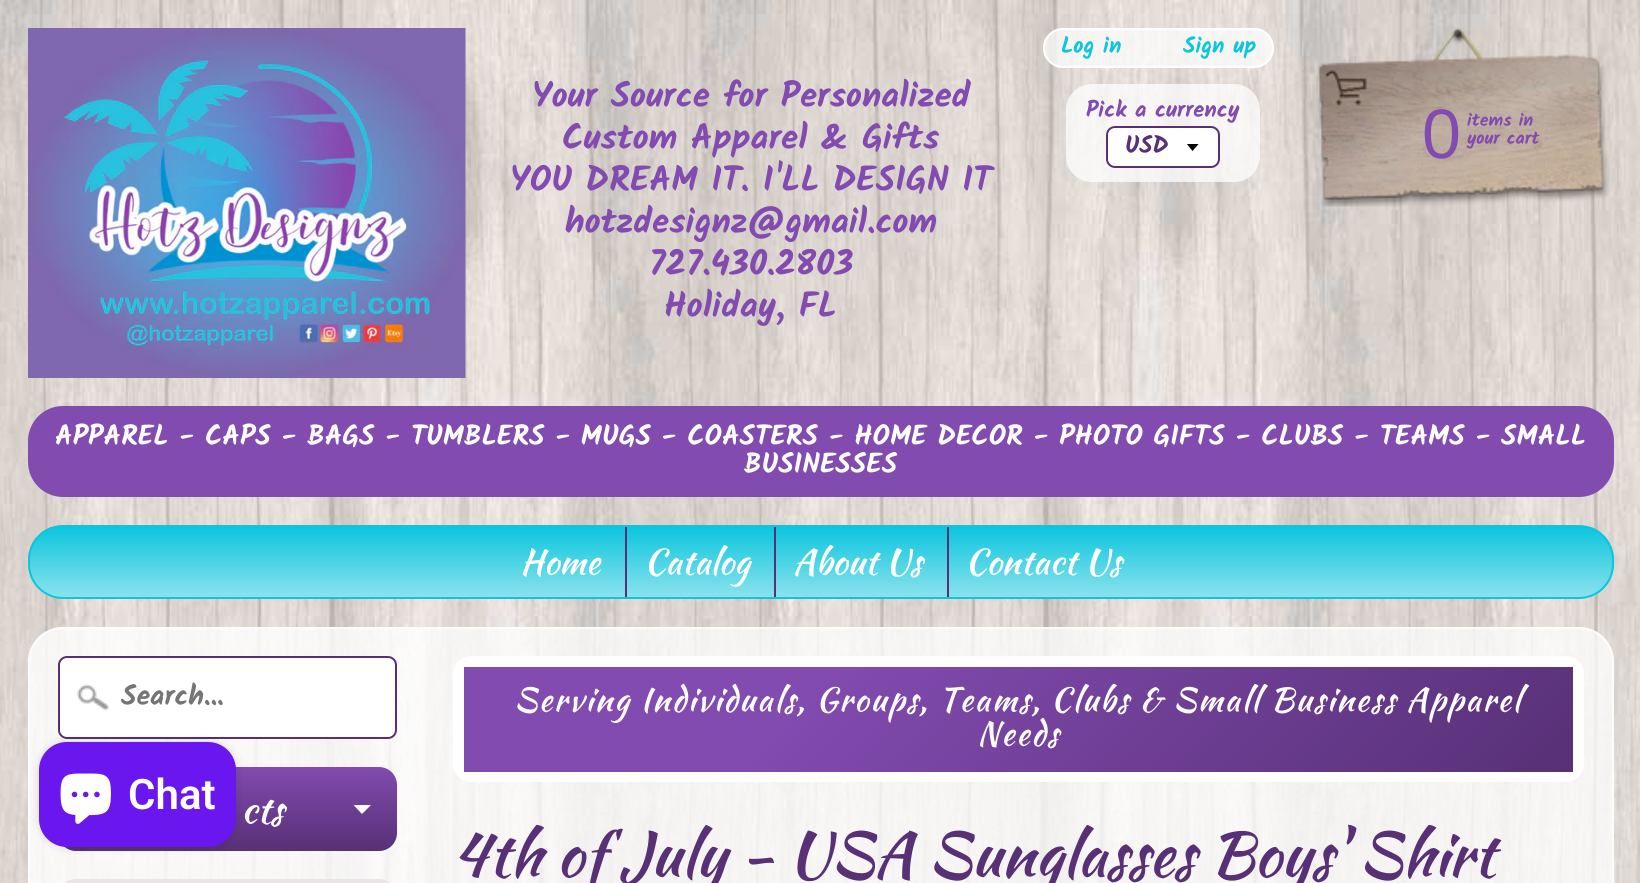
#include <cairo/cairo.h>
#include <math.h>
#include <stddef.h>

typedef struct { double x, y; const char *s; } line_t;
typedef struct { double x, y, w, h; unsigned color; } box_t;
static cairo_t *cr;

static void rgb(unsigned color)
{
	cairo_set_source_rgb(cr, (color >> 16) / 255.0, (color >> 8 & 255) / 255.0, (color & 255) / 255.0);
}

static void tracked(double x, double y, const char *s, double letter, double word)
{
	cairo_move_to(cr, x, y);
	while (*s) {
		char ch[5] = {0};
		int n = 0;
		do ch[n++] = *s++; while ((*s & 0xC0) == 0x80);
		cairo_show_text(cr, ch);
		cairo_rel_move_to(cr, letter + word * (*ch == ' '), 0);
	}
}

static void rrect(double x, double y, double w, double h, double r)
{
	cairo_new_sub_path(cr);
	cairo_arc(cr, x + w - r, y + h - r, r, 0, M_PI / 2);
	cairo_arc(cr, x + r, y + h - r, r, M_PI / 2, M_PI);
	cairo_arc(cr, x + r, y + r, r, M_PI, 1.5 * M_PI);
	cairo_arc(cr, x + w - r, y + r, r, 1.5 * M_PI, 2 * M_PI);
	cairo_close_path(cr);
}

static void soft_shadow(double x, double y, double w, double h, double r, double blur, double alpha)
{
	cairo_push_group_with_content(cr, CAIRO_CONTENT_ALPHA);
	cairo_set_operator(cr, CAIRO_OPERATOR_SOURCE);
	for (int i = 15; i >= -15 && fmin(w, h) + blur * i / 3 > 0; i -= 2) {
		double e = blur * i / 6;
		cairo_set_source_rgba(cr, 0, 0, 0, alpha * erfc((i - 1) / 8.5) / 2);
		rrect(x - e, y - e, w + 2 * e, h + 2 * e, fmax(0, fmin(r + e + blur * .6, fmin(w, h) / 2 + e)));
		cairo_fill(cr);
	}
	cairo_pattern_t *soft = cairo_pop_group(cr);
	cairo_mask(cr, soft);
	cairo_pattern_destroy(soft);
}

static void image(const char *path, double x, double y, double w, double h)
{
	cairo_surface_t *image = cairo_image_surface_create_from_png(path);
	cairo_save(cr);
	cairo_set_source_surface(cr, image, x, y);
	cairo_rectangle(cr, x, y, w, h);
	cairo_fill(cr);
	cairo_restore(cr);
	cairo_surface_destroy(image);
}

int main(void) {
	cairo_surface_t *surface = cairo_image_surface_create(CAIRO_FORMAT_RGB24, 1640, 883);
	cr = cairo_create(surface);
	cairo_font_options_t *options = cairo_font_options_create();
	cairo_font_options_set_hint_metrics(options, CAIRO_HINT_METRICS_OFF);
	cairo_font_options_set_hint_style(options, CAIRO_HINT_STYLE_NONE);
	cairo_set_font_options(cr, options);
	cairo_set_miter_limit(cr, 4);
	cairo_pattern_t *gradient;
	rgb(0xffffff);
	cairo_paint(cr);
	image("img/1.png", 0, 0, 1640, 883);
	cairo_set_source_rgba(cr, 1, 1, 1, 0.7);
	rrect(1044, 29, 229, 38, 19);
	cairo_fill_preserve(cr);
	rgb(0xffffff);
	cairo_stroke(cr);
	image("img/2.png", 28, 28, 438, 350);
	image("img/3.png", 1316, 28, 293, 179);
	rgb(0x824bb0);
	rrect(28, 406, 1586, 91, 35);
	cairo_fill(cr);
	cairo_save(cr);
	rrect(28, 525, 1586, 74, 35);
	cairo_clip(cr);
	gradient = cairo_pattern_create_linear(821, 527, 821, 597);
	cairo_pattern_add_color_stop_rgba(gradient, 0, 0.047, 0.776, 0.871, 1);
	cairo_pattern_add_color_stop_rgba(gradient, 1, 0.541, 0.886, 0.929, 1);
	cairo_set_source(cr, gradient);
	cairo_pattern_destroy(gradient);
	cairo_rectangle(cr, 28, 527, 1586, 70);
	cairo_fill(cr);
	cairo_restore(cr);
	rrect(29, 526, 1584, 72, 34);
	rgb(0x0cc6de);
	cairo_stroke(cr);
	{
		static const box_t items[] = {
			{625, 527, 2, 70, 0x573076},
			{774, 527, 2, 70, 0x573076},
			{947, 527, 2, 70, 0x573076},
		};
		for (size_t i = 0; i < sizeof items / sizeof *items; i++) {
			rgb(items[i].color);
			cairo_rectangle(cr, items[i].x, items[i].y, items[i].w, items[i].h);
			cairo_fill(cr);
		}
	}
	cairo_set_source_rgba(cr, 1, 1, 1, 0.75);
	rrect(1066, 84, 194, 98, 26);
	cairo_fill(cr);
	rgb(0xffffff);
	rrect(1106, 126, 114, 42, 9);
	cairo_fill(cr);
	cairo_save(cr);
	cairo_rectangle(cr, 1187, 144, 14, 8);
	cairo_clip(cr);
	rgb(0x000000);
	cairo_new_path(cr);
	cairo_move_to(cr, 1186.5, 143.5);
	cairo_line_to(cr, 1192.5, 151);
	cairo_line_to(cr, 1199, 143.5);
	cairo_close_path(cr);
	cairo_fill(cr);
	cairo_restore(cr);
	rrect(1107, 127, 112, 40, 8);
	rgb(0x573076);
	cairo_stroke(cr);
	cairo_set_source_rgba(cr, 1, 1, 1, 0.75);
	rrect(28, 627, 1586, 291, 35);
	cairo_fill(cr);
	rrect(29, 628, 1584, 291, 34);
	cairo_set_source_rgba(cr, 1, 1, 1, 0.7);
	cairo_stroke(cr);
	cairo_set_source_rgba(cr, 1, 1, 1, 0.25);
	cairo_new_path(cr);
	cairo_move_to(cr, 63, 628);
	cairo_line_to(cr, 425, 628);
	cairo_line_to(cr, 425, 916);
	cairo_line_to(cr, 30, 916);
	cairo_line_to(cr, 30, 661);
	cairo_curve_to(cr, 30, 643, 45, 628, 63, 628);
	cairo_close_path(cr);
	cairo_fill(cr);
	rgb(0xffffff);
	rrect(58, 656, 339, 83, 9);
	cairo_fill(cr);
	image("img/4.png", 77, 684, 32, 27);
	rrect(59, 657, 337, 81, 8);
	rgb(0x573076);
	cairo_stroke(cr);
	gradient = cairo_pattern_create_linear(228, 767, 228, 851);
	cairo_pattern_add_color_stop_rgba(gradient, 0, 0.51, 0.294, 0.69, 1);
	cairo_pattern_add_color_stop_rgba(gradient, 1, 0.341, 0.188, 0.463, 1);
	cairo_set_source(cr, gradient);
	cairo_pattern_destroy(gradient);
	rrect(58, 767, 339, 84, 18);
	cairo_fill(cr);
	rgb(0xffffff);
	cairo_new_path(cr);
	cairo_move_to(cr, 353.5, 805);
	cairo_line_to(cr, 371, 805);
	cairo_line_to(cr, 362, 814);
	cairo_close_path(cr);
	cairo_fill(cr);
	rgb(0xebe4e4);
	rrect(58, 879, 339, 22, 18);
	cairo_fill(cr);
	rgb(0xffffff);
	rrect(453, 656, 1131, 126, 18);
	cairo_fill(cr);
	gradient = cairo_pattern_create_linear(715, 416, 1322, 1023);
	cairo_pattern_add_color_stop_rgba(gradient, 0.3, 0.51, 0.294, 0.69, 1);
	cairo_pattern_add_color_stop_rgba(gradient, 1, 0.341, 0.188, 0.463, 1);
	cairo_set_source(cr, gradient);
	cairo_pattern_destroy(gradient);
	cairo_rectangle(cr, 464, 667, 1109, 105);
	cairo_fill(cr);
	rgb(0x000000);
	soft_shadow(39, 742, 197, 105, 28, 4.5, 0.15);
	rgb(0x6a16ef);
	rrect(39, 742, 197, 105, 28);
	cairo_fill(cr);
	image("img/5.png", 60, 773, 51, 51);
	cairo_select_font_face(cr, "Kalam", CAIRO_FONT_SLANT_NORMAL, CAIRO_FONT_WEIGHT_BOLD);
	cairo_set_font_size(cr, 22.5);
	rgb(0x0cc6de);
	cairo_move_to(cr, 1061, 53);
	cairo_show_text(cr, "Log in");
	cairo_move_to(cr, 1183, 53);
	cairo_show_text(cr, "Sign up");
	cairo_set_font_size(cr, 35);
	rgb(0x824bb0);
	{
		static const line_t items[] = {
			{532, 107, "Your Source for Personalized"},
			{562, 149, "Custom Apparel & Gifts"},
			{510, 191, "YOU DREAM IT. I'LL DESIGN IT"},
			{565, 233, "hotzdesignz@gmail.com"},
			{649, 275, "727.430.2803"},
			{664, 317, "Holiday, FL"},
		};
		for (size_t i = 0; i < sizeof items / sizeof *items; i++) {
			cairo_move_to(cr, items[i].x, items[i].y);
			cairo_show_text(cr, items[i].s);
		}
	}
	cairo_select_font_face(cr, "Liberation Sans", CAIRO_FONT_SLANT_NORMAL, CAIRO_FONT_WEIGHT_NORMAL);
	cairo_set_font_size(cr, 70);
	cairo_move_to(cr, 1422, 158);
	cairo_show_text(cr, "0");
	cairo_select_font_face(cr, "Kalam", CAIRO_FONT_SLANT_NORMAL, CAIRO_FONT_WEIGHT_BOLD);
	cairo_set_font_size(cr, 18);
	cairo_move_to(cr, 1467, 126);
	cairo_show_text(cr, "items in");
	cairo_move_to(cr, 1467, 144);
	cairo_show_text(cr, "your cart");
	cairo_set_font_size(cr, 28);
	rgb(0xffffff);
	cairo_move_to(cr, 55, 445);
	cairo_show_text(cr, "APPAREL - CAPS - BAGS - TUMBLERS - MUGS - COASTERS - HOME DECOR - PHOTO GIFTS - CLUBS - TEAMS - SMALL");
	cairo_move_to(cr, 744, 473);
	cairo_show_text(cr, "BUSINESSES");
	cairo_select_font_face(cr, "Kaushan Script", CAIRO_FONT_SLANT_NORMAL, CAIRO_FONT_WEIGHT_NORMAL);
	cairo_set_font_size(cr, 35);
	{
		static const line_t items[] = {
			{520, 574, "Home"},
			{644, 574, "Catalog"},
			{793, 574, "About Us"},
			{965, 574, "Contact Us"},
		};
		for (size_t i = 0; i < sizeof items / sizeof *items; i++) {
			cairo_move_to(cr, items[i].x, items[i].y);
			cairo_show_text(cr, items[i].s);
		}
	}
	cairo_select_font_face(cr, "Kalam", CAIRO_FONT_SLANT_NORMAL, CAIRO_FONT_WEIGHT_BOLD);
	cairo_set_font_size(cr, 22.5);
	rgb(0x824bb0);
	cairo_move_to(cr, 1086, 117);
	cairo_show_text(cr, "Pick a currency");
	cairo_set_font_size(cr, 24);
	rgb(0x573076);
	cairo_move_to(cr, 1125, 153);
	cairo_show_text(cr, "USD");
	cairo_set_font_size(cr, 28);
	rgb(0x757575);
	cairo_move_to(cr, 121, 705);
	cairo_show_text(cr, "Search...");
	cairo_select_font_face(cr, "Kaushan Script", CAIRO_FONT_SLANT_NORMAL, CAIRO_FONT_WEIGHT_NORMAL);
	cairo_set_font_size(cr, 38);
	rgb(0xffffff);
	cairo_move_to(cr, 241, 823);
	cairo_show_text(cr, "cts");
	cairo_set_font_size(cr, 32.8);
	tracked(514, 711, "Serving Individuals, Groups, Teams, Clubs & Small Business Apparel", 1.75, 0);
	tracked(977, 745, "Needs", 1.75, 0);
	cairo_set_font_size(cr, 61.6);
	rgb(0x573076);
	cairo_move_to(cr, 453, 876);
	cairo_show_text(cr, "4th of July - USA Sunglasses Boys' Shirt");
	cairo_select_font_face(cr, "Roboto SemiBold", CAIRO_FONT_SLANT_NORMAL, CAIRO_FONT_WEIGHT_NORMAL);
	cairo_set_font_size(cr, 42);
	rgb(0xffffff);
	cairo_move_to(cr, 128, 809);
	cairo_show_text(cr, "Chat");
	cairo_surface_write_to_png(surface, "page.png");
	cairo_font_options_destroy(options);
	cairo_destroy(cr);
	cairo_surface_destroy(surface);
	return 0;
}
